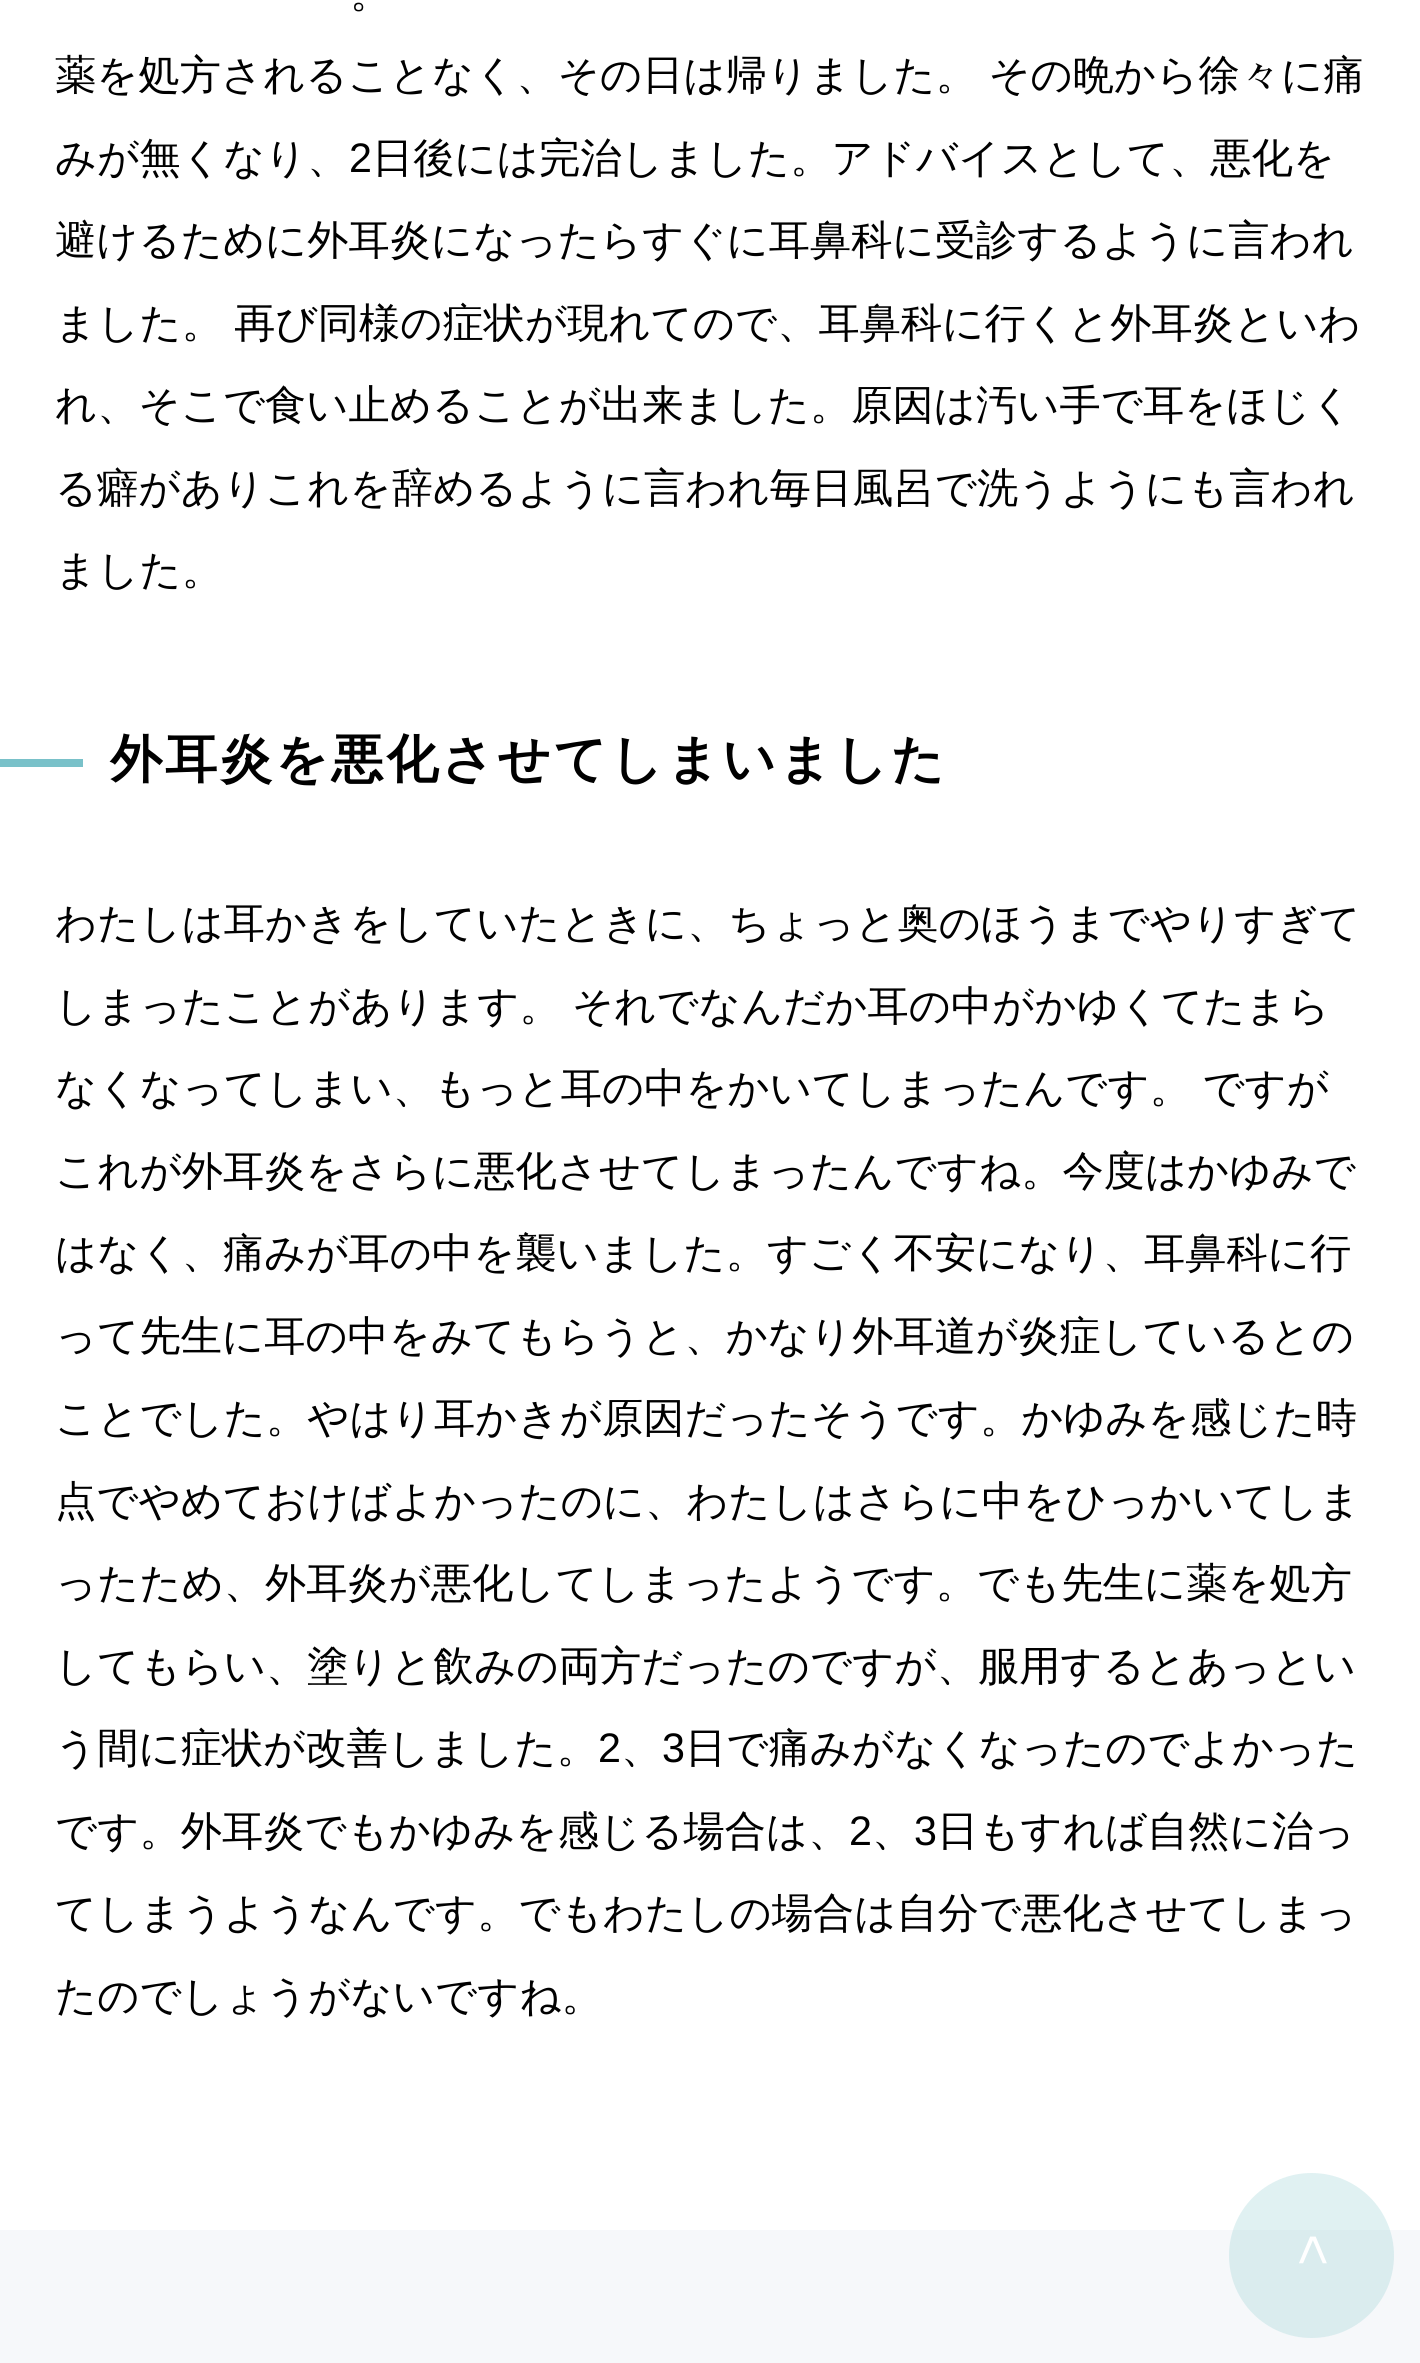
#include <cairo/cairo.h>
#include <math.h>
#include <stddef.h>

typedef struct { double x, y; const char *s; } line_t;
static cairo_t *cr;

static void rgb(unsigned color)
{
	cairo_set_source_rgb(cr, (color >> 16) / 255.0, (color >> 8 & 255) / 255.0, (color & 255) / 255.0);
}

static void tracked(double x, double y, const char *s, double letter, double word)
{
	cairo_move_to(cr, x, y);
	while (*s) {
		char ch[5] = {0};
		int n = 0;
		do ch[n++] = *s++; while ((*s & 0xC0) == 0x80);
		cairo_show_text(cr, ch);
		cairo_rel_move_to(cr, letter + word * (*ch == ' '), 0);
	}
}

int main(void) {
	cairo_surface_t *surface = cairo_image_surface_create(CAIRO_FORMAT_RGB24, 1420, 2363);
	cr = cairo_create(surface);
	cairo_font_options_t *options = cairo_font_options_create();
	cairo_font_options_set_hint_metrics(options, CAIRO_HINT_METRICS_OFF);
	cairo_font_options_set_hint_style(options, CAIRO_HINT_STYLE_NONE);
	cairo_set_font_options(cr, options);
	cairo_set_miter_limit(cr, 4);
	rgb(0xf6f8fa);
	cairo_paint(cr);
	rgb(0xffffff);
	cairo_rectangle(cr, 0, 0, 1420, 2230);
	cairo_fill(cr);
	rgb(0x79c1c9);
	cairo_rectangle(cr, 0, 759, 83, 8);
	cairo_fill(cr);
	cairo_set_source_rgba(cr, 0.592, 0.808, 0.831, 0.3);
	cairo_arc(cr, 1311.5, 2255.5, 82.5, 0, 2 * M_PI);
	cairo_fill(cr);
	cairo_select_font_face(cr, "WenQuanYi Zen Hei Medium", CAIRO_FONT_SLANT_NORMAL, CAIRO_FONT_WEIGHT_NORMAL);
	cairo_set_font_size(cr, 41.25);
	rgb(0x000000);
	cairo_move_to(cr, 350, 7);
	cairo_show_text(cr, "。");
	tracked(55, 89, "薬を処方されることなく、その日は帰りました。 その晩から徐々に痛", 0, -1);
	cairo_move_to(cr, 55, 172);
	cairo_show_text(cr, "みが無くなり、");
	cairo_select_font_face(cr, "Liberation Sans", CAIRO_FONT_SLANT_NORMAL, CAIRO_FONT_WEIGHT_NORMAL);
	cairo_move_to(cr, 349, 172);
	cairo_show_text(cr, "2");
	cairo_select_font_face(cr, "WenQuanYi Zen Hei Medium", CAIRO_FONT_SLANT_NORMAL, CAIRO_FONT_WEIGHT_NORMAL);
	cairo_move_to(cr, 372, 172);
	cairo_show_text(cr, "日後には完治しました。アドバイスとして、悪化を");
	cairo_move_to(cr, 55, 254);
	cairo_show_text(cr, "避けるために外耳炎になったらすぐに耳鼻科に受診するように言われ");
	tracked(55, 337, "ました。 再び同様の症状が現れてので、耳鼻科に行くと外耳炎といわ", 0, -1);
	{
		static const line_t items[] = {
			{55, 419, "れ、そこで食い止めることが出来ました。原因は汚い手で耳をほじく"},
			{55, 502, "る癖がありこれを辞めるように言われ毎日風呂で洗うようにも言われ"},
			{55, 584, "ました。"},
		};
		for (size_t i = 0; i < sizeof items / sizeof *items; i++) {
			cairo_move_to(cr, items[i].x, items[i].y);
			cairo_show_text(cr, items[i].s);
		}
	}
	cairo_select_font_face(cr, "WenQuanYi Zen Hei", CAIRO_FONT_SLANT_NORMAL, CAIRO_FONT_WEIGHT_BOLD);
	cairo_set_font_size(cr, 52.25);
	tracked(110, 777, "外耳炎を悪化させてしまいました", 2.75, 0);
	cairo_select_font_face(cr, "WenQuanYi Zen Hei Medium", CAIRO_FONT_SLANT_NORMAL, CAIRO_FONT_WEIGHT_NORMAL);
	cairo_set_font_size(cr, 41.25);
	cairo_move_to(cr, 55, 937);
	cairo_show_text(cr, "わたしは耳かきをしていたときに、ちょっと奥のほうまでやりすぎて");
	tracked(55, 1020, "しまったことがあります。 それでなんだか耳の中がかゆくてたまら", 0, -1);
	tracked(55, 1102, "なくなってしまい、もっと耳の中をかいてしまったんです。 ですが", 0, -1);
	{
		static const line_t items[] = {
			{55, 1185, "これが外耳炎をさらに悪化させてしまったんですね。今度はかゆみで"},
			{55, 1267, "はなく、痛みが耳の中を襲いました。すごく不安になり、耳鼻科に行"},
			{55, 1350, "って先生に耳の中をみてもらうと、かなり外耳道が炎症しているとの"},
			{55, 1432, "ことでした。やはり耳かきが原因だったそうです。かゆみを感じた時"},
			{55, 1515, "点でやめておけばよかったのに、わたしはさらに中をひっかいてしま"},
			{55, 1597, "ったため、外耳炎が悪化してしまったようです。でも先生に薬を処方"},
			{55, 1680, "してもらい、塗りと飲みの両方だったのですが、服用するとあっとい"},
			{55, 1762, "う間に症状が改善しました。"},
		};
		for (size_t i = 0; i < sizeof items / sizeof *items; i++) {
			cairo_move_to(cr, items[i].x, items[i].y);
			cairo_show_text(cr, items[i].s);
		}
	}
	cairo_select_font_face(cr, "Liberation Sans", CAIRO_FONT_SLANT_NORMAL, CAIRO_FONT_WEIGHT_NORMAL);
	cairo_move_to(cr, 598, 1762);
	cairo_show_text(cr, "2");
	cairo_select_font_face(cr, "WenQuanYi Zen Hei Medium", CAIRO_FONT_SLANT_NORMAL, CAIRO_FONT_WEIGHT_NORMAL);
	cairo_move_to(cr, 621, 1762);
	cairo_show_text(cr, "、");
	cairo_select_font_face(cr, "Liberation Sans", CAIRO_FONT_SLANT_NORMAL, CAIRO_FONT_WEIGHT_NORMAL);
	cairo_move_to(cr, 662, 1762);
	cairo_show_text(cr, "3");
	cairo_select_font_face(cr, "WenQuanYi Zen Hei Medium", CAIRO_FONT_SLANT_NORMAL, CAIRO_FONT_WEIGHT_NORMAL);
	cairo_move_to(cr, 685, 1762);
	cairo_show_text(cr, "日で痛みがなくなったのでよかった");
	cairo_move_to(cr, 55, 1845);
	cairo_show_text(cr, "です。外耳炎でもかゆみを感じる場合は、");
	cairo_select_font_face(cr, "Liberation Sans", CAIRO_FONT_SLANT_NORMAL, CAIRO_FONT_WEIGHT_NORMAL);
	cairo_move_to(cr, 849, 1845);
	cairo_show_text(cr, "2");
	cairo_select_font_face(cr, "WenQuanYi Zen Hei Medium", CAIRO_FONT_SLANT_NORMAL, CAIRO_FONT_WEIGHT_NORMAL);
	cairo_move_to(cr, 872, 1845);
	cairo_show_text(cr, "、");
	cairo_select_font_face(cr, "Liberation Sans", CAIRO_FONT_SLANT_NORMAL, CAIRO_FONT_WEIGHT_NORMAL);
	cairo_move_to(cr, 914, 1845);
	cairo_show_text(cr, "3");
	cairo_select_font_face(cr, "WenQuanYi Zen Hei Medium", CAIRO_FONT_SLANT_NORMAL, CAIRO_FONT_WEIGHT_NORMAL);
	{
		static const line_t items[] = {
			{937, 1845, "日もすれば自然に治っ"},
			{55, 1927, "てしまうようなんです。でもわたしの場合は自分で悪化させてしまっ"},
			{55, 2010, "たのでしょうがないですね。"},
		};
		for (size_t i = 0; i < sizeof items / sizeof *items; i++) {
			cairo_move_to(cr, items[i].x, items[i].y);
			cairo_show_text(cr, items[i].s);
		}
	}
	cairo_select_font_face(cr, "Liberation Sans", CAIRO_FONT_SLANT_NORMAL, CAIRO_FONT_WEIGHT_NORMAL);
	cairo_set_font_size(cr, 55);
	rgb(0xffffff);
	cairo_save(cr);
	cairo_translate(cr, 1331, 2266);
	cairo_rotate(cr, -90 * M_PI / 180);
	tracked(0, 0, ">", -10, 0);
	cairo_restore(cr);
	cairo_surface_write_to_png(surface, "page.png");
	cairo_font_options_destroy(options);
	cairo_destroy(cr);
	cairo_surface_destroy(surface);
	return 0;
}
